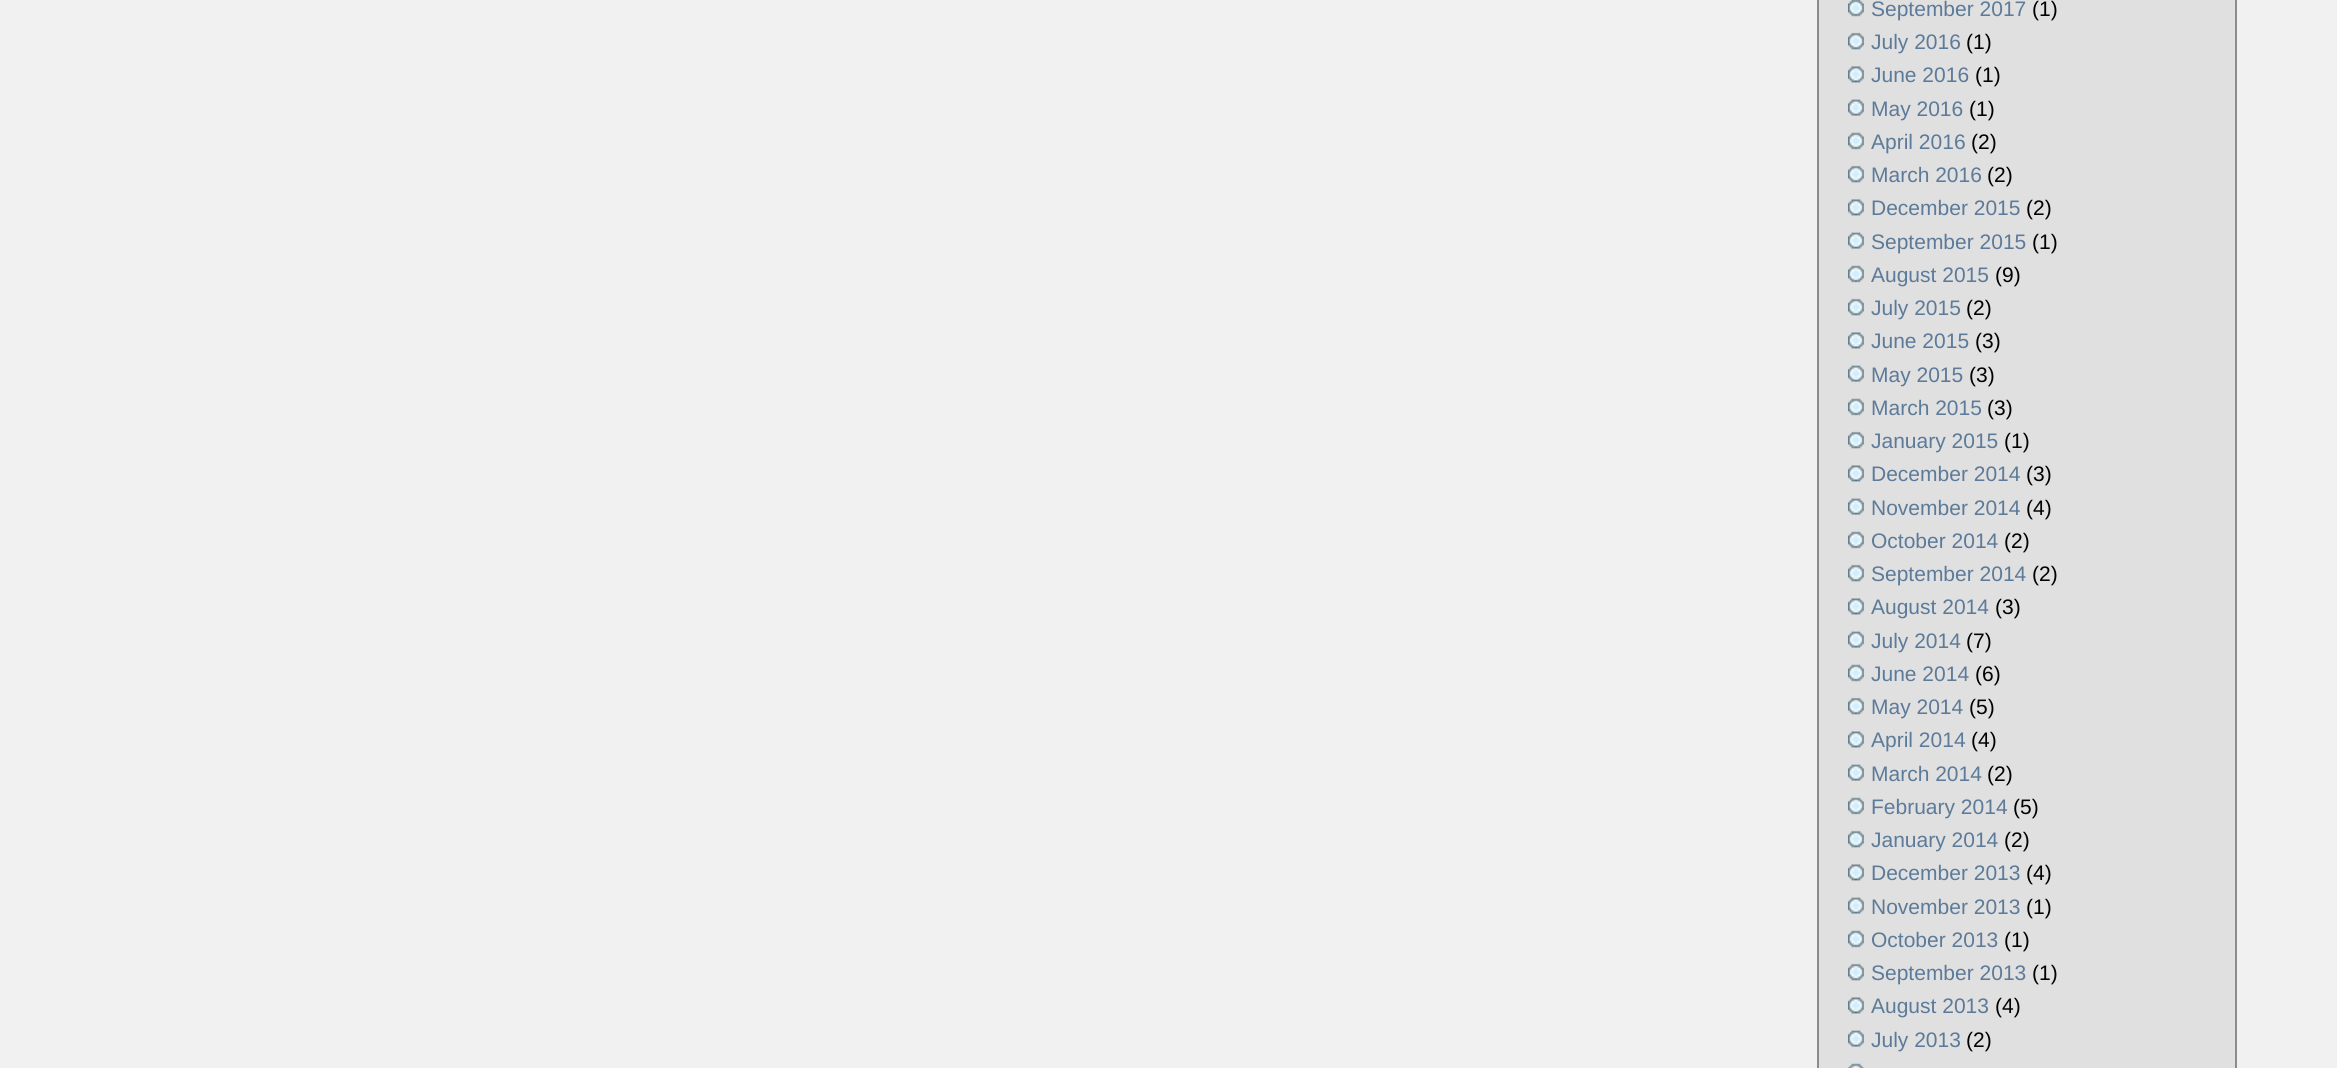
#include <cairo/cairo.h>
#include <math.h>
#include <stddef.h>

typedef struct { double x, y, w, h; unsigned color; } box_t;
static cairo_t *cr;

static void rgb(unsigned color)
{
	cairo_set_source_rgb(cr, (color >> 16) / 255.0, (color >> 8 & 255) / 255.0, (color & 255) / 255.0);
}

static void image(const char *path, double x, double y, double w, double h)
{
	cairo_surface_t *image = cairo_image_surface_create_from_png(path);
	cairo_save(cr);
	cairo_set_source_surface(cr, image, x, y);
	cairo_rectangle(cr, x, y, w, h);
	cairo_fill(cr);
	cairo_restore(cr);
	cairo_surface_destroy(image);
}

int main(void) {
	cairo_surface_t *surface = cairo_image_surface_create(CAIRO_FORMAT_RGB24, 2337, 1068);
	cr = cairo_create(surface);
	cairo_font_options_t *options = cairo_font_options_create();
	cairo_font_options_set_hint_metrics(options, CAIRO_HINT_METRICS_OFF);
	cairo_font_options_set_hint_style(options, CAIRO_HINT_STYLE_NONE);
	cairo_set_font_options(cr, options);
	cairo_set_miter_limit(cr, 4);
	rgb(0xf1f1f1);
	cairo_paint(cr);
	{
		static const box_t items[] = {
			{1819, 0, 416, 1068, 0xe0e0e0},
			{2235, 0, 2, 1068, 0x8a8c8d},
			{1817, 0, 2, 1068, 0x8a8c8d},
		};
		for (size_t i = 0; i < sizeof items / sizeof *items; i++) {
			rgb(items[i].color);
			cairo_rectangle(cr, items[i].x, items[i].y, items[i].w, items[i].h);
			cairo_fill(cr);
		}
	}
	image("img/1.png", 1848, 0, 16, 17);
	image("img/2.png", 1848, 32, 16, 18);
	image("img/3.png", 1848, 66, 16, 17);
	image("img/4.png", 1848, 99, 16, 17);
	image("img/5.png", 1848, 132, 16, 18);
	image("img/2.png", 1848, 165, 16, 18);
	image("img/3.png", 1848, 199, 16, 17);
	image("img/4.png", 1848, 232, 16, 17);
	image("img/5.png", 1848, 265, 16, 18);
	image("img/2.png", 1848, 298, 16, 18);
	image("img/3.png", 1848, 332, 16, 17);
	image("img/4.png", 1848, 365, 16, 17);
	image("img/5.png", 1848, 398, 16, 18);
	image("img/2.png", 1848, 431, 16, 18);
	image("img/3.png", 1848, 465, 16, 17);
	image("img/4.png", 1848, 498, 16, 17);
	image("img/5.png", 1848, 531, 16, 18);
	image("img/2.png", 1848, 564, 16, 18);
	image("img/3.png", 1848, 598, 16, 17);
	image("img/4.png", 1848, 631, 16, 17);
	image("img/6.png", 1848, 664, 16, 18);
	image("img/2.png", 1848, 697, 16, 18);
	image("img/7.png", 1848, 731, 16, 17);
	image("img/4.png", 1848, 764, 16, 17);
	image("img/5.png", 1848, 797, 16, 18);
	image("img/8.png", 1848, 830, 16, 18);
	image("img/3.png", 1848, 864, 16, 17);
	image("img/4.png", 1848, 897, 16, 17);
	image("img/5.png", 1848, 930, 16, 18);
	image("img/2.png", 1848, 963, 16, 18);
	image("img/3.png", 1848, 997, 16, 17);
	image("img/4.png", 1848, 1030, 16, 17);
	image("img/9.png", 1848, 1063, 16, 5);
	cairo_select_font_face(cr, "Liberation Sans", CAIRO_FONT_SLANT_NORMAL, CAIRO_FONT_WEIGHT_NORMAL);
	cairo_set_font_size(cr, 21);
	rgb(0x5c7a99);
	cairo_move_to(cr, 1871, 16);
	cairo_show_text(cr, "September 2017");
	rgb(0x000000);
	cairo_move_to(cr, 2032, 16);
	cairo_show_text(cr, "(1)");
	rgb(0x5c7a99);
	cairo_move_to(cr, 1871, 49);
	cairo_show_text(cr, "July 2016");
	rgb(0x000000);
	cairo_move_to(cr, 1966, 49);
	cairo_show_text(cr, "(1)");
	rgb(0x5c7a99);
	cairo_move_to(cr, 1871, 82);
	cairo_show_text(cr, "June 2016");
	rgb(0x000000);
	cairo_move_to(cr, 1975, 82);
	cairo_show_text(cr, "(1)");
	rgb(0x5c7a99);
	cairo_move_to(cr, 1871, 116);
	cairo_show_text(cr, "May 2016");
	rgb(0x000000);
	cairo_move_to(cr, 1969, 116);
	cairo_show_text(cr, "(1)");
	rgb(0x5c7a99);
	cairo_move_to(cr, 1871, 149);
	cairo_show_text(cr, "April 2016");
	rgb(0x000000);
	cairo_move_to(cr, 1971, 149);
	cairo_show_text(cr, "(2)");
	rgb(0x5c7a99);
	cairo_move_to(cr, 1871, 182);
	cairo_show_text(cr, "March 2016");
	rgb(0x000000);
	cairo_move_to(cr, 1987, 182);
	cairo_show_text(cr, "(2)");
	rgb(0x5c7a99);
	cairo_move_to(cr, 1871, 215);
	cairo_show_text(cr, "December 2015");
	rgb(0x000000);
	cairo_move_to(cr, 2026, 215);
	cairo_show_text(cr, "(2)");
	rgb(0x5c7a99);
	cairo_move_to(cr, 1871, 249);
	cairo_show_text(cr, "September 2015");
	rgb(0x000000);
	cairo_move_to(cr, 2032, 249);
	cairo_show_text(cr, "(1)");
	rgb(0x5c7a99);
	cairo_move_to(cr, 1871, 282);
	cairo_show_text(cr, "August 2015");
	rgb(0x000000);
	cairo_move_to(cr, 1995, 282);
	cairo_show_text(cr, "(9)");
	rgb(0x5c7a99);
	cairo_move_to(cr, 1871, 315);
	cairo_show_text(cr, "July 2015");
	rgb(0x000000);
	cairo_move_to(cr, 1966, 315);
	cairo_show_text(cr, "(2)");
	rgb(0x5c7a99);
	cairo_move_to(cr, 1871, 348);
	cairo_show_text(cr, "June 2015");
	rgb(0x000000);
	cairo_move_to(cr, 1975, 348);
	cairo_show_text(cr, "(3)");
	rgb(0x5c7a99);
	cairo_move_to(cr, 1871, 382);
	cairo_show_text(cr, "May 2015");
	rgb(0x000000);
	cairo_move_to(cr, 1969, 382);
	cairo_show_text(cr, "(3)");
	rgb(0x5c7a99);
	cairo_move_to(cr, 1871, 415);
	cairo_show_text(cr, "March 2015");
	rgb(0x000000);
	cairo_move_to(cr, 1987, 415);
	cairo_show_text(cr, "(3)");
	rgb(0x5c7a99);
	cairo_move_to(cr, 1871, 448);
	cairo_show_text(cr, "January 2015");
	rgb(0x000000);
	cairo_move_to(cr, 2004, 448);
	cairo_show_text(cr, "(1)");
	rgb(0x5c7a99);
	cairo_move_to(cr, 1871, 481);
	cairo_show_text(cr, "December 2014");
	rgb(0x000000);
	cairo_move_to(cr, 2026, 481);
	cairo_show_text(cr, "(3)");
	rgb(0x5c7a99);
	cairo_move_to(cr, 1871, 515);
	cairo_show_text(cr, "November 2014");
	rgb(0x000000);
	cairo_move_to(cr, 2026, 515);
	cairo_show_text(cr, "(4)");
	rgb(0x5c7a99);
	cairo_move_to(cr, 1871, 548);
	cairo_show_text(cr, "October 2014");
	rgb(0x000000);
	cairo_move_to(cr, 2004, 548);
	cairo_show_text(cr, "(2)");
	rgb(0x5c7a99);
	cairo_move_to(cr, 1871, 581);
	cairo_show_text(cr, "September 2014");
	rgb(0x000000);
	cairo_move_to(cr, 2032, 581);
	cairo_show_text(cr, "(2)");
	rgb(0x5c7a99);
	cairo_move_to(cr, 1871, 614);
	cairo_show_text(cr, "August 2014");
	rgb(0x000000);
	cairo_move_to(cr, 1995, 614);
	cairo_show_text(cr, "(3)");
	rgb(0x5c7a99);
	cairo_move_to(cr, 1871, 648);
	cairo_show_text(cr, "July 2014");
	rgb(0x000000);
	cairo_move_to(cr, 1966, 648);
	cairo_show_text(cr, "(7)");
	rgb(0x5c7a99);
	cairo_move_to(cr, 1871, 681);
	cairo_show_text(cr, "June 2014");
	rgb(0x000000);
	cairo_move_to(cr, 1975, 681);
	cairo_show_text(cr, "(6)");
	rgb(0x5c7a99);
	cairo_move_to(cr, 1871, 714);
	cairo_show_text(cr, "May 2014");
	rgb(0x000000);
	cairo_move_to(cr, 1969, 714);
	cairo_show_text(cr, "(5)");
	rgb(0x5c7a99);
	cairo_move_to(cr, 1871, 747);
	cairo_show_text(cr, "April 2014");
	rgb(0x000000);
	cairo_move_to(cr, 1971, 747);
	cairo_show_text(cr, "(4)");
	rgb(0x5c7a99);
	cairo_move_to(cr, 1871, 781);
	cairo_show_text(cr, "March 2014");
	rgb(0x000000);
	cairo_move_to(cr, 1987, 781);
	cairo_show_text(cr, "(2)");
	rgb(0x5c7a99);
	cairo_move_to(cr, 1871, 814);
	cairo_show_text(cr, "February 2014");
	rgb(0x000000);
	cairo_move_to(cr, 2013, 814);
	cairo_show_text(cr, "(5)");
	rgb(0x5c7a99);
	cairo_move_to(cr, 1871, 847);
	cairo_show_text(cr, "January 2014");
	rgb(0x000000);
	cairo_move_to(cr, 2004, 847);
	cairo_show_text(cr, "(2)");
	rgb(0x5c7a99);
	cairo_move_to(cr, 1871, 880);
	cairo_show_text(cr, "December 2013");
	rgb(0x000000);
	cairo_move_to(cr, 2026, 880);
	cairo_show_text(cr, "(4)");
	rgb(0x5c7a99);
	cairo_move_to(cr, 1871, 914);
	cairo_show_text(cr, "November 2013");
	rgb(0x000000);
	cairo_move_to(cr, 2026, 914);
	cairo_show_text(cr, "(1)");
	rgb(0x5c7a99);
	cairo_move_to(cr, 1871, 947);
	cairo_show_text(cr, "October 2013");
	rgb(0x000000);
	cairo_move_to(cr, 2004, 947);
	cairo_show_text(cr, "(1)");
	rgb(0x5c7a99);
	cairo_move_to(cr, 1871, 980);
	cairo_show_text(cr, "September 2013");
	rgb(0x000000);
	cairo_move_to(cr, 2032, 980);
	cairo_show_text(cr, "(1)");
	rgb(0x5c7a99);
	cairo_move_to(cr, 1871, 1013);
	cairo_show_text(cr, "August 2013");
	rgb(0x000000);
	cairo_move_to(cr, 1995, 1013);
	cairo_show_text(cr, "(4)");
	rgb(0x5c7a99);
	cairo_move_to(cr, 1871, 1047);
	cairo_show_text(cr, "July 2013");
	rgb(0x000000);
	cairo_move_to(cr, 1966, 1047);
	cairo_show_text(cr, "(2)");
	cairo_surface_write_to_png(surface, "page.png");
	cairo_font_options_destroy(options);
	cairo_destroy(cr);
	cairo_surface_destroy(surface);
	return 0;
}
